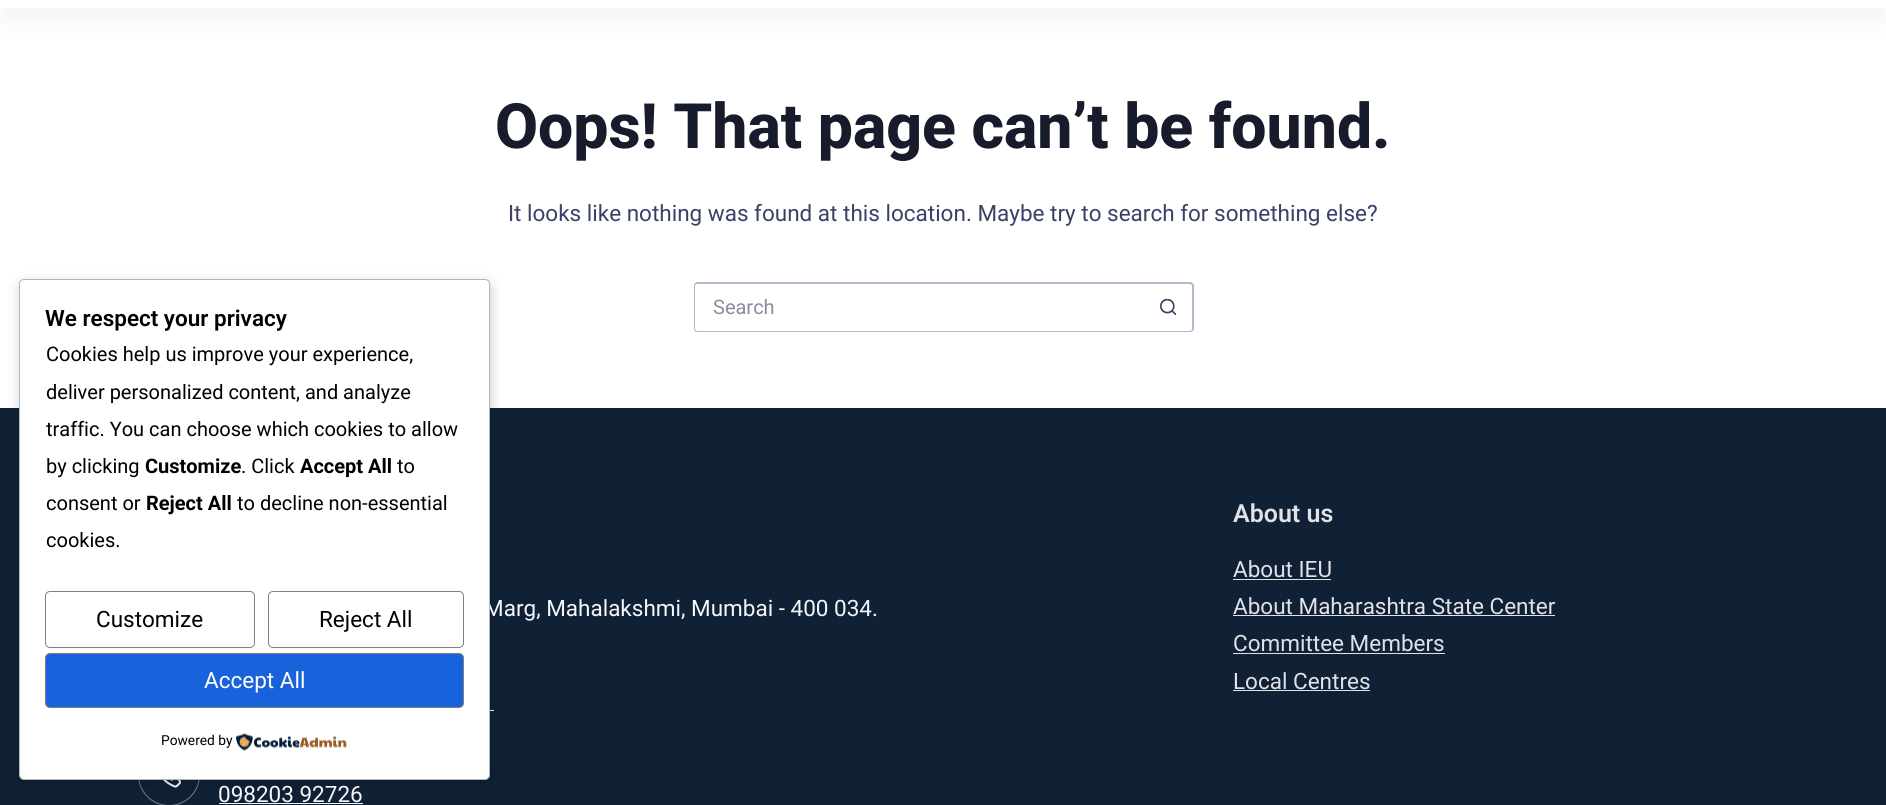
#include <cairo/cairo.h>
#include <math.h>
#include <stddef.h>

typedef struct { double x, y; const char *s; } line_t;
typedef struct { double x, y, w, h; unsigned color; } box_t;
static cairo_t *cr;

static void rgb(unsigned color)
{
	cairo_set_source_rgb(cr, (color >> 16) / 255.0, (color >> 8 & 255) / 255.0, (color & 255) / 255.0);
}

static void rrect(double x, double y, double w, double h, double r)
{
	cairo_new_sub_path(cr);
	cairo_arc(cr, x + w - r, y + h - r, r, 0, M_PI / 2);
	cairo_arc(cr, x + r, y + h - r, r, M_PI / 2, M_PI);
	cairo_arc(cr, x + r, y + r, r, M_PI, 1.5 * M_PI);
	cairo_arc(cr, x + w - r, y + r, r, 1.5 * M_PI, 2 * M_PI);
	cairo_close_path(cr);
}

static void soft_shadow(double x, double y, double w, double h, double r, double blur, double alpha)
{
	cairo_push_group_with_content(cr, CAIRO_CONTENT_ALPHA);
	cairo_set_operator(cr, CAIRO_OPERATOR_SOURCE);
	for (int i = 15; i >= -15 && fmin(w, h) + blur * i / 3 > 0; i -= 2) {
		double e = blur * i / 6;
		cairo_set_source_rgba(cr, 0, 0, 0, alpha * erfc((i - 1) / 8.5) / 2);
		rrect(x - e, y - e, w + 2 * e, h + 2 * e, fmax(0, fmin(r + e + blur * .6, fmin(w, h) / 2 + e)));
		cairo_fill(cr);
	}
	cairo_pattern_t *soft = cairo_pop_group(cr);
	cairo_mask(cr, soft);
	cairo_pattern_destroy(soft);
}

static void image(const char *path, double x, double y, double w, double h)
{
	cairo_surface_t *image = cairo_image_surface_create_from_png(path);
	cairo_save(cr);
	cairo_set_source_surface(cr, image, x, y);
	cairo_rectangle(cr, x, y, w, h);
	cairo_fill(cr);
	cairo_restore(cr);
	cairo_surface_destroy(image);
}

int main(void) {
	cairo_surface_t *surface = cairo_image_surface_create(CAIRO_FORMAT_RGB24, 1886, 805);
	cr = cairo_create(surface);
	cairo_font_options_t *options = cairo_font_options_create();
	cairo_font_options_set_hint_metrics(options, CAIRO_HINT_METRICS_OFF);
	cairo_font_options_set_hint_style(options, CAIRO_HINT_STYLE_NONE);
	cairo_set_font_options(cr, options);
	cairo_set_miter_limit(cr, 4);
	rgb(0xffffff);
	cairo_paint(cr);
	rgb(0x2b3d50);
	soft_shadow(0, -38, 1886, 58, 0, 12.5, 0.06);
	rgb(0xffffff);
	cairo_rectangle(cr, 0, 0, 1886, 8);
	cairo_fill(cr);
	rgb(0xb2bbcc);
	cairo_set_fill_rule(cr, CAIRO_FILL_RULE_EVEN_ODD);
	cairo_new_path(cr);
	cairo_move_to(cr, 698, 282);
	cairo_line_to(cr, 1144, 282);
	cairo_line_to(cr, 1144, 332);
	cairo_line_to(cr, 698, 332);
	cairo_curve_to(cr, 695, 332, 694, 331, 694, 329);
	cairo_line_to(cr, 694, 286);
	cairo_curve_to(cr, 694, 284, 695, 282, 698, 282);
	cairo_close_path(cr);
	cairo_move_to(cr, 698, 284);
	cairo_line_to(cr, 1144, 284);
	cairo_line_to(cr, 1144, 331);
	cairo_line_to(cr, 698, 331);
	cairo_curve_to(cr, 696, 331, 695, 330, 695, 329);
	cairo_line_to(cr, 695, 286);
	cairo_curve_to(cr, 695, 285, 696, 284, 698, 284);
	cairo_close_path(cr);
	cairo_fill(cr);
	cairo_new_path(cr);
	cairo_move_to(cr, 1144, 282);
	cairo_line_to(cr, 1190, 282);
	cairo_curve_to(cr, 1192, 282, 1194, 284, 1194, 286);
	cairo_line_to(cr, 1194, 329);
	cairo_curve_to(cr, 1194, 331, 1192, 332, 1190, 332);
	cairo_line_to(cr, 1144, 332);
	cairo_close_path(cr);
	cairo_move_to(cr, 1144, 284);
	cairo_line_to(cr, 1190, 284);
	cairo_curve_to(cr, 1191, 284, 1192, 285, 1192, 286);
	cairo_line_to(cr, 1192, 329);
	cairo_curve_to(cr, 1192, 330, 1191, 331, 1190, 331);
	cairo_line_to(cr, 1144, 331);
	cairo_close_path(cr);
	cairo_fill(cr);
	image("img/1.png", 1160, 299, 16, 16);
	rgb(0x102136);
	cairo_rectangle(cr, 0, 408, 1886, 397);
	cairo_fill(cr);
	rgb(0xf5f6fa);
	cairo_rectangle(cr, 490, 710, 4, 1);
	cairo_fill(cr);
	cairo_arc(cr, 169, 775, 30.5, 0, 2 * M_PI);
	rgb(0x75808d);
	cairo_set_line_width(cr, 1);
	cairo_stroke(cr);
	image("img/2.png", 163, 780, 18, 8);
	{
		static const box_t items[] = {
			{219, 803, 144, 1, 0xf5f6fa},
			{1233, 579, 98, 1, 0xe1e2e8},
			{1233, 615, 322, 1, 0xe1e2e8},
			{1233, 653, 212, 1, 0xe1e2e8},
			{1233, 690, 137, 1, 0xe1e2e8},
		};
		for (size_t i = 0; i < sizeof items / sizeof *items; i++) {
			rgb(items[i].color);
			cairo_rectangle(cr, items[i].x, items[i].y, items[i].w, items[i].h);
			cairo_fill(cr);
		}
	}
	rgb(0x000000);
	soft_shadow(20, 283, 471, 501, 5, 6, 0.2);
	cairo_select_font_face(cr, "Roboto ExtraBold", CAIRO_FONT_SLANT_NORMAL, CAIRO_FONT_WEIGHT_NORMAL);
	cairo_set_font_size(cr, 62.5);
	rgb(0x171b2b);
	cairo_move_to(cr, 495, 148);
	cairo_show_text(cr, "Oops! That page can’t be found.");
	cairo_select_font_face(cr, "Roboto", CAIRO_FONT_SLANT_NORMAL, CAIRO_FONT_WEIGHT_NORMAL);
	cairo_set_font_size(cr, 22.5);
	rgb(0x3a4166);
	cairo_move_to(cr, 508, 221);
	cairo_show_text(cr, "It looks like nothing was found at this location. Maybe try to search for something else?");
	cairo_set_font_size(cr, 20);
	rgb(0x898da3);
	cairo_move_to(cr, 713, 314);
	cairo_show_text(cr, "Search");
	cairo_set_font_size(cr, 22.5);
	rgb(0xf5f6fa);
	cairo_move_to(cr, 484, 616);
	cairo_show_text(cr, "Marg, Mahalakshmi, Mumbai - 400 034.");
	cairo_move_to(cr, 218, 802);
	cairo_show_text(cr, "098203 92726");
	cairo_select_font_face(cr, "Roboto SemiBold", CAIRO_FONT_SLANT_NORMAL, CAIRO_FONT_WEIGHT_NORMAL);
	cairo_set_font_size(cr, 25);
	rgb(0xe1e2e8);
	cairo_move_to(cr, 1233, 522);
	cairo_show_text(cr, "About us");
	cairo_select_font_face(cr, "Roboto", CAIRO_FONT_SLANT_NORMAL, CAIRO_FONT_WEIGHT_NORMAL);
	cairo_set_font_size(cr, 22.5);
	{
		static const line_t items[] = {
			{1233, 577, "About IEU"},
			{1233, 614, "About Maharashtra State Center"},
			{1233, 651, "Committee Members"},
			{1233, 689, "Local Centres"},
		};
		for (size_t i = 0; i < sizeof items / sizeof *items; i++) {
			cairo_move_to(cr, items[i].x, items[i].y);
			cairo_show_text(cr, items[i].s);
		}
	}
	rgb(0xffffff);
	rrect(19.5, 279.5, 470, 500, 4.5);
	cairo_fill_preserve(cr);
	rgb(0xabb8c3);
	cairo_stroke(cr);
	cairo_select_font_face(cr, "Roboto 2 SemiBold", CAIRO_FONT_SLANT_NORMAL, CAIRO_FONT_WEIGHT_NORMAL);
	rgb(0x000000);
	cairo_move_to(cr, 45, 326);
	cairo_show_text(cr, "We respect your privacy");
	cairo_select_font_face(cr, "Roboto", CAIRO_FONT_SLANT_NORMAL, CAIRO_FONT_WEIGHT_NORMAL);
	cairo_set_font_size(cr, 20);
	{
		static const line_t items[] = {
			{46, 361, "Cookies help us improve your experience,"},
			{46, 399, "deliver personalized content, and analyze"},
			{46, 436, "traffic. You can choose which cookies to allow"},
			{46, 473, "by clicking"},
		};
		for (size_t i = 0; i < sizeof items / sizeof *items; i++) {
			cairo_move_to(cr, items[i].x, items[i].y);
			cairo_show_text(cr, items[i].s);
		}
	}
	cairo_select_font_face(cr, "Roboto", CAIRO_FONT_SLANT_NORMAL, CAIRO_FONT_WEIGHT_BOLD);
	cairo_move_to(cr, 145, 473);
	cairo_show_text(cr, "Customize");
	cairo_select_font_face(cr, "Roboto", CAIRO_FONT_SLANT_NORMAL, CAIRO_FONT_WEIGHT_NORMAL);
	cairo_move_to(cr, 241, 473);
	cairo_show_text(cr, ". Click");
	cairo_select_font_face(cr, "Roboto", CAIRO_FONT_SLANT_NORMAL, CAIRO_FONT_WEIGHT_BOLD);
	cairo_move_to(cr, 300, 473);
	cairo_show_text(cr, "Accept All");
	cairo_select_font_face(cr, "Roboto", CAIRO_FONT_SLANT_NORMAL, CAIRO_FONT_WEIGHT_NORMAL);
	cairo_move_to(cr, 397, 473);
	cairo_show_text(cr, "to");
	cairo_move_to(cr, 46, 510);
	cairo_show_text(cr, "consent or");
	cairo_select_font_face(cr, "Roboto", CAIRO_FONT_SLANT_NORMAL, CAIRO_FONT_WEIGHT_BOLD);
	cairo_move_to(cr, 146, 510);
	cairo_show_text(cr, "Reject All");
	cairo_select_font_face(cr, "Roboto", CAIRO_FONT_SLANT_NORMAL, CAIRO_FONT_WEIGHT_NORMAL);
	cairo_move_to(cr, 237, 510);
	cairo_show_text(cr, "to decline non-essential");
	cairo_move_to(cr, 46, 547);
	cairo_show_text(cr, "cookies.");
	rrect(45.5, 591.5, 209, 56, 4.5);
	rgb(0x808080);
	cairo_stroke(cr);
	cairo_set_font_size(cr, 22.5);
	rgb(0x000000);
	cairo_move_to(cr, 96, 627);
	cairo_show_text(cr, "Customize");
	rrect(268.5, 591.5, 195, 56, 4.5);
	rgb(0x808080);
	cairo_stroke(cr);
	rgb(0x000000);
	cairo_move_to(cr, 319, 627);
	cairo_show_text(cr, "Reject All");
	rgb(0x1863dc);
	rrect(45.5, 653.5, 418, 54, 4.5);
	cairo_fill_preserve(cr);
	rgb(0x808080);
	cairo_stroke(cr);
	rgb(0xffffff);
	cairo_move_to(cr, 204, 688);
	cairo_show_text(cr, "Accept All");
	cairo_set_font_size(cr, 13.75);
	rgb(0x000000);
	cairo_move_to(cr, 161, 745);
	cairo_show_text(cr, "Powered by");
	image("img/3.png", 236, 733, 111, 18);
	cairo_surface_write_to_png(surface, "page.png");
	cairo_font_options_destroy(options);
	cairo_destroy(cr);
	cairo_surface_destroy(surface);
	return 0;
}
